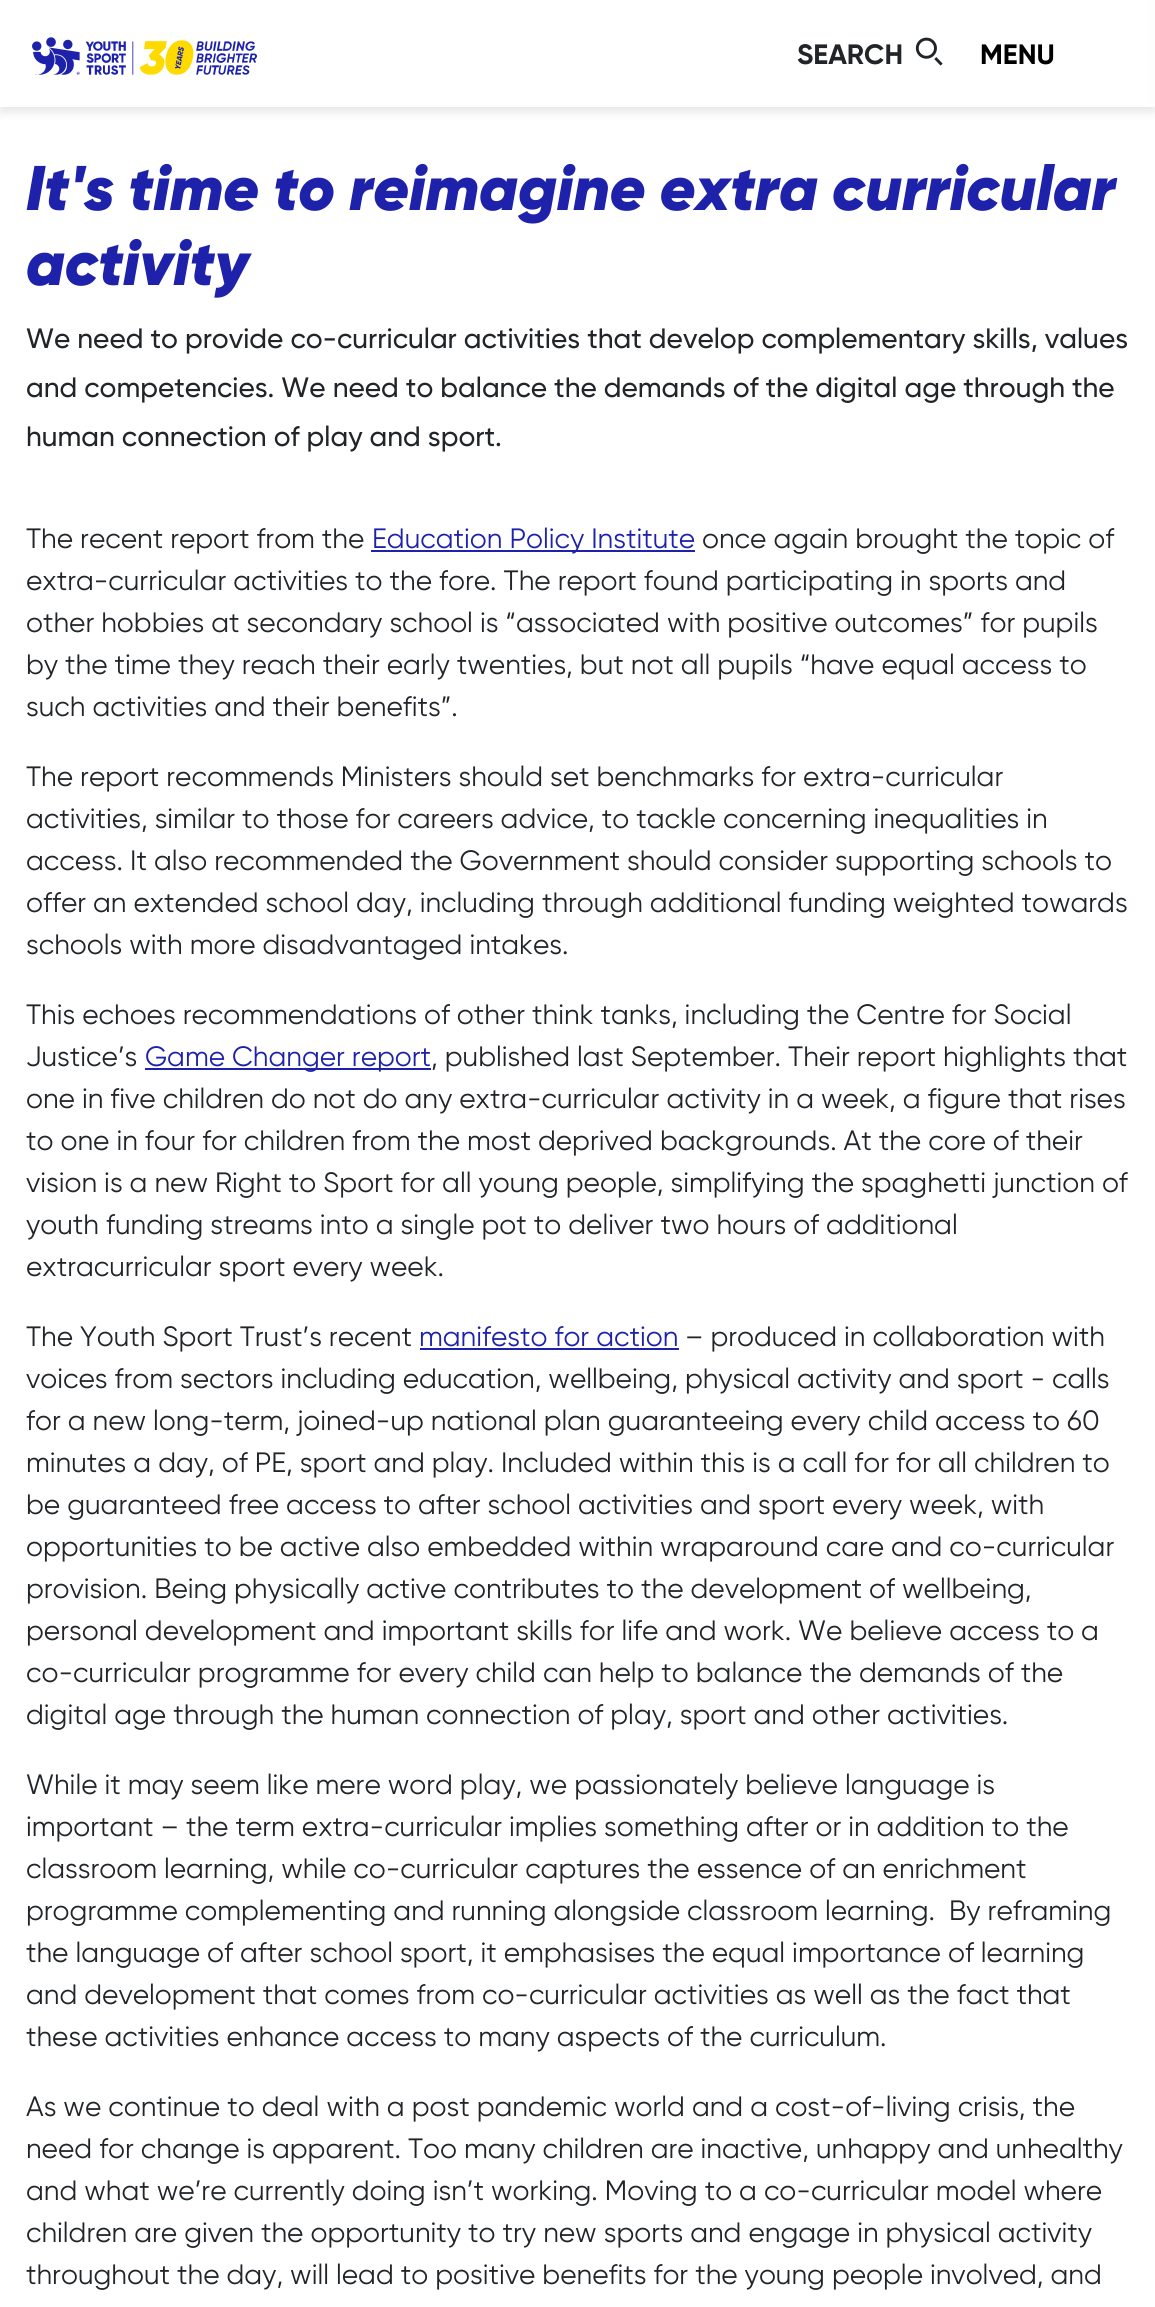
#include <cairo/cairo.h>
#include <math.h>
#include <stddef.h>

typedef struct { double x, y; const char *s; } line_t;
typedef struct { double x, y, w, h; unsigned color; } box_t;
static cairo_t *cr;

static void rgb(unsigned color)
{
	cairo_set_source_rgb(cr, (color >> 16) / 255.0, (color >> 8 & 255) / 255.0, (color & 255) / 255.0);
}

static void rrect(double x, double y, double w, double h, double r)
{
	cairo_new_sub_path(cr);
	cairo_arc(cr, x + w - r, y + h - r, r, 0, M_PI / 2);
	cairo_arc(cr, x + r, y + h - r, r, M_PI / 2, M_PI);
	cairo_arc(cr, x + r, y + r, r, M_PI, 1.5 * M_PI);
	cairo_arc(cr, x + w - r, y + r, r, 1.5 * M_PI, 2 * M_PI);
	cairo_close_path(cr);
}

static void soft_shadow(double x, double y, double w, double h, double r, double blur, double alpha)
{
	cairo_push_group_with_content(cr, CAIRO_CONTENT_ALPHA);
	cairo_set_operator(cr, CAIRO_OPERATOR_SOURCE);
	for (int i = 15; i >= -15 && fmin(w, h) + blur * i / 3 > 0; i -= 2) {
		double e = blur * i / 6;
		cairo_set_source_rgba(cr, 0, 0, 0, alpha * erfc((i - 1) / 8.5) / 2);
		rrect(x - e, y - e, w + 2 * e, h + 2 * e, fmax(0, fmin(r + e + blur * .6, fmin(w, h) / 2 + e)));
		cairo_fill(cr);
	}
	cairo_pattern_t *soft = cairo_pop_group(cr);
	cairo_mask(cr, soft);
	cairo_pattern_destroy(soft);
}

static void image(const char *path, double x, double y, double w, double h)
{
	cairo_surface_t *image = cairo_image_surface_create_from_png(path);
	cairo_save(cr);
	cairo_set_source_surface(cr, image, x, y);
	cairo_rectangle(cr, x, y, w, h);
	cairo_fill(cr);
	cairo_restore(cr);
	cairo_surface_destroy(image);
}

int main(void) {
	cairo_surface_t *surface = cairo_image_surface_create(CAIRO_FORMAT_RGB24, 1155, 2307);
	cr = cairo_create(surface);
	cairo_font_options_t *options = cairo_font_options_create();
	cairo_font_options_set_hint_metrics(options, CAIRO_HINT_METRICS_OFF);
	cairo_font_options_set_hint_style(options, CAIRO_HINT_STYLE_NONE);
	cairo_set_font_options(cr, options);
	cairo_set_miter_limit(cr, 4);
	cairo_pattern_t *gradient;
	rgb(0xffffff);
	cairo_paint(cr);
	rgb(0x000000);
	soft_shadow(0, 5, 1155, 107, 0, 5, 0.1);
	gradient = cairo_pattern_create_linear(0, 53, 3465, 53);
	cairo_pattern_add_color_stop_rgba(gradient, 0.33, 1, 1, 1, 1);
	cairo_pattern_add_color_stop_rgba(gradient, 0.66, 0.118, 0.133, 0.667, 1);
	cairo_set_source(cr, gradient);
	cairo_pattern_destroy(gradient);
	cairo_rectangle(cr, 0, 0, 1155, 107);
	cairo_fill(cr);
	image("img/1.png", 32, 37, 225, 38);
	image("img/2.png", 915, 37, 28, 29);
	{
		static const box_t items[] = {
			{371, 550, 324, 2, 0x1e22aa},
			{145, 1068, 286, 2, 0x1e22aa},
			{420, 1348, 259, 2, 0x1e22aa},
		};
		for (size_t i = 0; i < sizeof items / sizeof *items; i++) {
			rgb(items[i].color);
			cairo_rectangle(cr, items[i].x, items[i].y, items[i].w, items[i].h);
			cairo_fill(cr);
		}
	}
	cairo_select_font_face(cr, "Gilroy", CAIRO_FONT_SLANT_NORMAL, CAIRO_FONT_WEIGHT_BOLD);
	cairo_set_font_size(cr, 28);
	rgb(0x212529);
	cairo_move_to(cr, 797, 64);
	cairo_show_text(cr, "SEARCH");
	rgb(0x000000);
	cairo_move_to(cr, 980, 64);
	cairo_show_text(cr, "MENU");
	cairo_select_font_face(cr, "Gilroy Black", CAIRO_FONT_SLANT_ITALIC, CAIRO_FONT_WEIGHT_NORMAL);
	cairo_set_font_size(cr, 63);
	rgb(0x1e22aa);
	cairo_move_to(cr, 26, 210);
	cairo_show_text(cr, "It's time to reimagine extra curricular");
	cairo_move_to(cr, 26, 285);
	cairo_show_text(cr, "activity");
	cairo_select_font_face(cr, "Gilroy Medium", CAIRO_FONT_SLANT_NORMAL, CAIRO_FONT_WEIGHT_NORMAL);
	cairo_set_font_size(cr, 28);
	rgb(0x212529);
	{
		static const line_t items[] = {
			{26, 348, "We need to provide co-curricular activities that develop complementary skills, values"},
			{26, 397, "and competencies. We need to balance the demands of the digital age through the"},
			{26, 446, "human connection of play and sport."},
		};
		for (size_t i = 0; i < sizeof items / sizeof *items; i++) {
			cairo_move_to(cr, items[i].x, items[i].y);
			cairo_show_text(cr, items[i].s);
		}
	}
	cairo_select_font_face(cr, "Gilroy", CAIRO_FONT_SLANT_NORMAL, CAIRO_FONT_WEIGHT_NORMAL);
	cairo_move_to(cr, 26, 548);
	cairo_show_text(cr, "The recent report from the");
	rgb(0x1e22aa);
	cairo_move_to(cr, 372, 548);
	cairo_show_text(cr, "Education Policy Institute");
	rgb(0x212529);
	{
		static const line_t items[] = {
			{702, 548, "once again brought the topic of"},
			{26, 590, "extra-curricular activities to the fore. The report found participating in sports and"},
			{26, 632, "other hobbies at secondary school is “associated with positive outcomes” for pupils"},
			{26, 674, "by the time they reach their early twenties, but not all pupils “have equal access to"},
			{26, 716, "such activities and their benefits”."},
			{26, 786, "The report recommends Ministers should set benchmarks for extra-curricular"},
			{26, 828, "activities, similar to those for careers advice, to tackle concerning inequalities in"},
			{26, 870, "access. It also recommended the Government should consider supporting schools to"},
			{26, 912, "offer an extended school day, including through additional funding weighted towards"},
			{26, 954, "schools with more disadvantaged intakes."},
			{26, 1024, "This echoes recommendations of other think tanks, including the Centre for Social"},
			{26, 1066, "Justice’s"},
		};
		for (size_t i = 0; i < sizeof items / sizeof *items; i++) {
			cairo_move_to(cr, items[i].x, items[i].y);
			cairo_show_text(cr, items[i].s);
		}
	}
	rgb(0x1e22aa);
	cairo_move_to(cr, 145, 1066);
	cairo_show_text(cr, "Game Changer report");
	rgb(0x212529);
	{
		static const line_t items[] = {
			{431, 1066, ", published last September. Their report highlights that"},
			{26, 1108, "one in five children do not do any extra-curricular activity in a week, a figure that rises"},
			{26, 1150, "to one in four for children from the most deprived backgrounds. At the core of their"},
			{26, 1192, "vision is a new Right to Sport for all young people, simplifying the spaghetti junction of"},
			{26, 1234, "youth funding streams into a single pot to deliver two hours of additional"},
			{26, 1276, "extracurricular sport every week."},
			{26, 1346, "The Youth Sport Trust’s recent"},
		};
		for (size_t i = 0; i < sizeof items / sizeof *items; i++) {
			cairo_move_to(cr, items[i].x, items[i].y);
			cairo_show_text(cr, items[i].s);
		}
	}
	rgb(0x1e22aa);
	cairo_move_to(cr, 419, 1346);
	cairo_show_text(cr, "manifesto for action");
	rgb(0x212529);
	{
		static const line_t items[] = {
			{685, 1346, "– produced in collaboration with"},
			{26, 1388, "voices from sectors including education, wellbeing, physical activity and sport - calls"},
			{26, 1430, "for a new long-term, joined-up national plan guaranteeing every child access to 60"},
			{26, 1472, "minutes a day, of PE, sport and play. Included within this is a call for for all children to"},
			{26, 1514, "be guaranteed free access to after school activities and sport every week, with"},
			{26, 1556, "opportunities to be active also embedded within wraparound care and co-curricular"},
			{26, 1598, "provision. Being physically active contributes to the development of wellbeing,"},
			{26, 1640, "personal development and important skills for life and work. We believe access to a"},
			{26, 1682, "co-curricular programme for every child can help to balance the demands of the"},
			{26, 1724, "digital age through the human connection of play, sport and other activities."},
			{26, 1794, "While it may seem like mere word play, we passionately believe language is"},
			{26, 1836, "important – the term extra-curricular implies something after or in addition to the"},
			{26, 1878, "classroom learning, while co-curricular captures the essence of an enrichment"},
			{26, 1920, "programme complementing and running alongside classroom learning.  By reframing"},
			{26, 1962, "the language of after school sport, it emphasises the equal importance of learning"},
			{26, 2004, "and development that comes from co-curricular activities as well as the fact that"},
			{26, 2046, "these activities enhance access to many aspects of the curriculum."},
			{26, 2116, "As we continue to deal with a post pandemic world and a cost-of-living crisis, the"},
			{26, 2158, "need for change is apparent. Too many children are inactive, unhappy and unhealthy"},
			{26, 2200, "and what we’re currently doing isn’t working. Moving to a co-curricular model where"},
			{26, 2242, "children are given the opportunity to try new sports and engage in physical activity"},
			{26, 2284, "throughout the day, will lead to positive benefits for the young people involved, and"},
		};
		for (size_t i = 0; i < sizeof items / sizeof *items; i++) {
			cairo_move_to(cr, items[i].x, items[i].y);
			cairo_show_text(cr, items[i].s);
		}
	}
	cairo_surface_write_to_png(surface, "page.png");
	cairo_font_options_destroy(options);
	cairo_destroy(cr);
	cairo_surface_destroy(surface);
	return 0;
}
